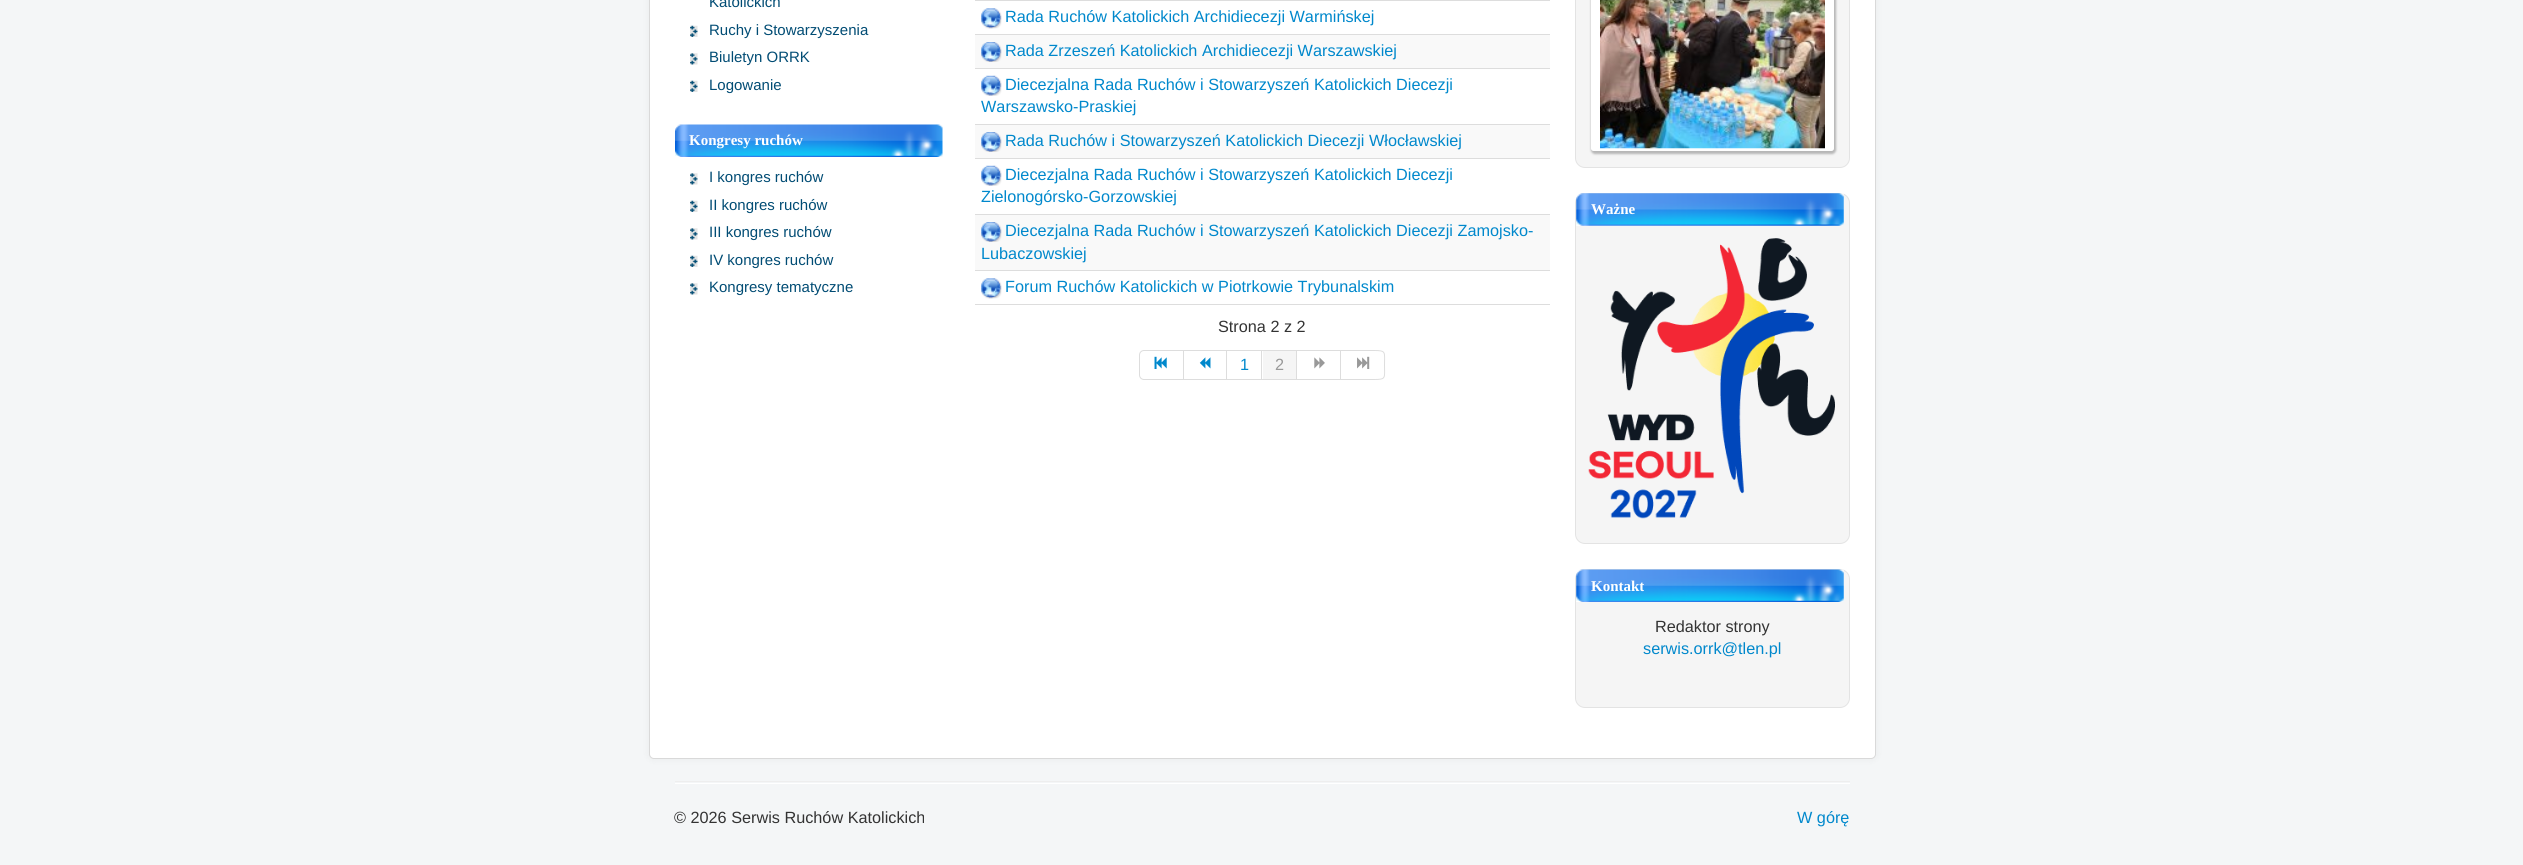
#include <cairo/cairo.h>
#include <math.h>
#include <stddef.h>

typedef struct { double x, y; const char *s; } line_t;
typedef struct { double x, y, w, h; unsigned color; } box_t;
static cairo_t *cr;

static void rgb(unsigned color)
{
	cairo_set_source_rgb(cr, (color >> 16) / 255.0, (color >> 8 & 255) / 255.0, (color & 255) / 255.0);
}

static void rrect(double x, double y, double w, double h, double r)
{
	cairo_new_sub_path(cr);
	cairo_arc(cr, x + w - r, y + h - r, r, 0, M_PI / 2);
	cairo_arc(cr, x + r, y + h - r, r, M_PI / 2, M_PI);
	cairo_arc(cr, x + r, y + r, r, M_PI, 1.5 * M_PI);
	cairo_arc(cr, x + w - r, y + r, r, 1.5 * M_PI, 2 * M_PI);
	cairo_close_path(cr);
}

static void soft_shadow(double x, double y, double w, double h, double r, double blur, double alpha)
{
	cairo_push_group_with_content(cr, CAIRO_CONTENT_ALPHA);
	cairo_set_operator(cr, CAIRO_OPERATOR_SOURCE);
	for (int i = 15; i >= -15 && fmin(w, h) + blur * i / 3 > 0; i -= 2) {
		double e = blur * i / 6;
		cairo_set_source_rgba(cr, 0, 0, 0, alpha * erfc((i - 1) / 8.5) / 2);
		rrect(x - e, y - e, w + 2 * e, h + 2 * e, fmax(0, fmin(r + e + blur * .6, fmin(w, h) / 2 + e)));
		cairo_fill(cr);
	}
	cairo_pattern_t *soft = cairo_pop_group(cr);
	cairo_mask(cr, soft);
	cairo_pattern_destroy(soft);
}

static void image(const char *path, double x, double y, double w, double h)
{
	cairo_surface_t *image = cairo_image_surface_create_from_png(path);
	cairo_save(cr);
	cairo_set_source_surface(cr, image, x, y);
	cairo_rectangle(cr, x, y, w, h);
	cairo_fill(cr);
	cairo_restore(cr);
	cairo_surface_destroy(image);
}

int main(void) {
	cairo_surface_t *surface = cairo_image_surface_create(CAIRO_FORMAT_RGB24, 2523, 865);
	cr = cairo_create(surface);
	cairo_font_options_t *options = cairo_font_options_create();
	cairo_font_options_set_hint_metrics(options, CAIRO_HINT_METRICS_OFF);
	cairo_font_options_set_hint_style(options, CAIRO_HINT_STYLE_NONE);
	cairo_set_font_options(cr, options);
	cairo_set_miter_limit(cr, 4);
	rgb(0xf4f6f7);
	cairo_paint(cr);
	rgb(0x000000);
	soft_shadow(649, -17, 1227, 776, 5, 4, 0.05);
	rgb(0xffffff);
	rrect(649, -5, 1227, 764, 5);
	cairo_fill(cr);
	rrect(649.5, -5.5, 1226, 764, 4.5);
	cairo_set_source_rgba(cr, 0, 0, 0, 0.15);
	cairo_set_line_width(cr, 1);
	cairo_stroke(cr);
	image("img/1.png", 690, 25, 8, 12);
	image("img/2.png", 690, 53, 8, 12);
	image("img/1.png", 690, 80, 8, 12);
	image("img/3.png", 675, 124, 268, 33);
	image("img/2.png", 690, 173, 8, 12);
	image("img/1.png", 690, 200, 8, 12);
	image("img/2.png", 690, 228, 8, 12);
	image("img/1.png", 690, 255, 8, 12);
	image("img/2.png", 690, 283, 8, 12);
	rgb(0xdddddd);
	cairo_rectangle(cr, 975, 0, 575, 1);
	cairo_fill(cr);
	cairo_rectangle(cr, 975, 34, 575, 1);
	cairo_fill(cr);
	image("img/4.png", 981, 8, 21, 21);
	rgb(0xf9f9f9);
	cairo_rectangle(cr, 975, 35, 575, 33);
	cairo_fill(cr);
	rgb(0xdddddd);
	cairo_rectangle(cr, 975, 68, 575, 1);
	cairo_fill(cr);
	image("img/5.png", 981, 42, 21, 20);
	cairo_rectangle(cr, 975, 124, 575, 1);
	cairo_fill(cr);
	image("img/6.png", 981, 75, 21, 21);
	rgb(0xf9f9f9);
	cairo_rectangle(cr, 975, 125, 575, 33);
	cairo_fill(cr);
	rgb(0xdddddd);
	cairo_rectangle(cr, 975, 158, 575, 1);
	cairo_fill(cr);
	image("img/5.png", 981, 132, 21, 20);
	cairo_rectangle(cr, 975, 214, 575, 1);
	cairo_fill(cr);
	image("img/6.png", 981, 165, 21, 21);
	rgb(0xf9f9f9);
	cairo_rectangle(cr, 975, 215, 575, 55);
	cairo_fill(cr);
	rgb(0xdddddd);
	cairo_rectangle(cr, 975, 270, 575, 1);
	cairo_fill(cr);
	image("img/5.png", 981, 222, 21, 20);
	cairo_rectangle(cr, 975, 304, 575, 1);
	cairo_fill(cr);
	image("img/4.png", 981, 278, 21, 21);
	cairo_new_path(cr);
	cairo_move_to(cr, 1144, 350.5);
	cairo_line_to(cr, 1183.5, 350.5);
	cairo_line_to(cr, 1183.5, 379.5);
	cairo_line_to(cr, 1144, 379.5);
	cairo_curve_to(cr, 1141.5, 379.5, 1139.5, 377.5, 1139.5, 375);
	cairo_line_to(cr, 1139.5, 355);
	cairo_curve_to(cr, 1139.5, 352.5, 1141.5, 350.5, 1144, 350.5);
	cairo_close_path(cr);
	cairo_stroke(cr);
	image("img/7.png", 1154, 356, 13, 13);
	{
		static const box_t items[] = {
			{1184, 350, 157, 1, 0xdddddd},
			{1226, 350, 1, 30, 0xdddddd},
			{1184, 379, 44, 1, 0xdddddd},
		};
		for (size_t i = 0; i < sizeof items / sizeof *items; i++) {
			rgb(items[i].color);
			cairo_rectangle(cr, items[i].x, items[i].y, items[i].w, items[i].h);
			cairo_fill(cr);
		}
	}
	image("img/8.png", 1199, 357, 12, 12);
	{
		static const box_t items[] = {
			{1261, 350, 1, 30, 0xdddddd},
			{1228, 379, 35, 1, 0xdddddd},
			{1263, 351, 33, 28, 0xf5f5f5},
			{1296, 350, 1, 30, 0xdddddd},
			{1263, 379, 35, 1, 0xdddddd},
			{1340, 350, 1, 30, 0xdddddd},
			{1298, 379, 43, 1, 0xdddddd},
		};
		for (size_t i = 0; i < sizeof items / sizeof *items; i++) {
			rgb(items[i].color);
			cairo_rectangle(cr, items[i].x, items[i].y, items[i].w, items[i].h);
			cairo_fill(cr);
		}
	}
	image("img/9.png", 1314, 357, 11, 12);
	cairo_set_fill_rule(cr, CAIRO_FILL_RULE_EVEN_ODD);
	cairo_new_path(cr);
	cairo_move_to(cr, 1341, 350);
	cairo_line_to(cr, 1374, 350);
	cairo_curve_to(cr, 1387, 350, 1385, 352, 1385, 365);
	cairo_curve_to(cr, 1385, 378, 1387, 380, 1374, 380);
	cairo_line_to(cr, 1341, 380);
	cairo_close_path(cr);
	cairo_move_to(cr, 1341, 351);
	cairo_line_to(cr, 1374, 351);
	cairo_curve_to(cr, 1386, 351, 1384, 352, 1384, 365);
	cairo_curve_to(cr, 1384, 378, 1386, 379, 1374, 379);
	cairo_line_to(cr, 1341, 379);
	cairo_close_path(cr);
	cairo_fill(cr);
	image("img/10.png", 1357, 356, 13, 13);
	rgb(0xf5f5f5);
	rrect(1575.5, -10.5, 274, 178, 9.5);
	cairo_fill_preserve(cr);
	rgb(0xe3e3e3);
	cairo_stroke(cr);
	rgb(0x787878);
	soft_shadow(1591, -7, 245, 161, 4, 1, 0.5);
	rgb(0xffffff);
	rrect(1591, -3, 243, 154, 2.5);
	cairo_fill(cr);
	image("img/11.png", 1600, 0, 225, 149);
	rgb(0xf5f5f5);
	rrect(1575.5, 193.5, 274, 350, 9.5);
	cairo_fill_preserve(cr);
	rgb(0xe3e3e3);
	cairo_stroke(cr);
	image("img/12.png", 1576, 193, 268, 33);
	image("img/13.png", 1588, 238, 247, 281);
	rgb(0xf5f5f5);
	rrect(1575.5, 569.5, 274, 138, 9.5);
	cairo_fill_preserve(cr);
	rgb(0xe3e3e3);
	cairo_stroke(cr);
	image("img/14.png", 1576, 569, 268, 33);
	rgb(0xeeeeee);
	cairo_rectangle(cr, 675, 781, 1175, 1);
	cairo_fill(cr);
	rgb(0xffffff);
	cairo_rectangle(cr, 675, 783, 1175, 1);
	cairo_fill(cr);
	cairo_select_font_face(cr, "Liberation Sans", CAIRO_FONT_SLANT_NORMAL, CAIRO_FONT_WEIGHT_NORMAL);
	cairo_set_font_size(cr, 15);
	rgb(0x014c74);
	{
		static const line_t items[] = {
			{709, 7, "Katolickich"},
			{709, 35, "Ruchy i Stowarzyszenia"},
			{709, 62, "Biuletyn ORRK"},
			{709, 90, "Logowanie"},
		};
		for (size_t i = 0; i < sizeof items / sizeof *items; i++) {
			cairo_move_to(cr, items[i].x, items[i].y);
			cairo_show_text(cr, items[i].s);
		}
	}
	cairo_select_font_face(cr, "Liberation Serif", CAIRO_FONT_SLANT_NORMAL, CAIRO_FONT_WEIGHT_BOLD);
	rgb(0xffffff);
	cairo_move_to(cr, 689, 145);
	cairo_show_text(cr, "Kongresy ruchów");
	cairo_select_font_face(cr, "Liberation Sans", CAIRO_FONT_SLANT_NORMAL, CAIRO_FONT_WEIGHT_NORMAL);
	rgb(0x014c74);
	{
		static const line_t items[] = {
			{709, 182, "I kongres ruchów"},
			{709, 210, "II kongres ruchów"},
			{709, 237, "III kongres ruchów"},
			{709, 265, "IV kongres ruchów"},
			{709, 292, "Kongresy tematyczne"},
		};
		for (size_t i = 0; i < sizeof items / sizeof *items; i++) {
			cairo_move_to(cr, items[i].x, items[i].y);
			cairo_show_text(cr, items[i].s);
		}
	}
	cairo_set_font_size(cr, 16.25);
	rgb(0x0088cc);
	{
		static const line_t items[] = {
			{1005, 22, "Rada Ruchów Katolickich Archidiecezji Warmińskej"},
			{1005, 56, "Rada Zrzeszeń Katolickich Archidiecezji Warszawskiej"},
			{1005, 90, "Diecezjalna Rada Ruchów i Stowarzyszeń Katolickich Diecezji"},
			{981, 112, "Warszawsko-Praskiej"},
			{1005, 146, "Rada Ruchów i Stowarzyszeń Katolickich Diecezji Włocławskiej"},
			{1005, 180, "Diecezjalna Rada Ruchów i Stowarzyszeń Katolickich Diecezji"},
			{981, 202, "Zielonogórsko-Gorzowskiej"},
			{1005, 236, "Diecezjalna Rada Ruchów i Stowarzyszeń Katolickich Diecezji Zamojsko-"},
			{981, 259, "Lubaczowskiej"},
			{1005, 292, "Forum Ruchów Katolickich w Piotrkowie Trybunalskim"},
		};
		for (size_t i = 0; i < sizeof items / sizeof *items; i++) {
			cairo_move_to(cr, items[i].x, items[i].y);
			cairo_show_text(cr, items[i].s);
		}
	}
	rgb(0x333333);
	cairo_move_to(cr, 1218, 332);
	cairo_show_text(cr, "Strona 2 z 2");
	rgb(0x0088cc);
	cairo_move_to(cr, 1240, 370);
	cairo_show_text(cr, "1");
	rgb(0x999999);
	cairo_move_to(cr, 1275, 370);
	cairo_show_text(cr, "2");
	cairo_select_font_face(cr, "Liberation Serif", CAIRO_FONT_SLANT_NORMAL, CAIRO_FONT_WEIGHT_BOLD);
	cairo_set_font_size(cr, 15);
	rgb(0xffffff);
	cairo_move_to(cr, 1591, 214);
	cairo_show_text(cr, "Ważne");
	cairo_move_to(cr, 1591, 591);
	cairo_show_text(cr, "Kontakt");
	cairo_select_font_face(cr, "Liberation Sans", CAIRO_FONT_SLANT_NORMAL, CAIRO_FONT_WEIGHT_NORMAL);
	cairo_set_font_size(cr, 16.25);
	rgb(0x333333);
	cairo_move_to(cr, 1655, 632);
	cairo_show_text(cr, "Redaktor strony");
	rgb(0x0088cc);
	cairo_move_to(cr, 1643, 654);
	cairo_show_text(cr, "serwis.orrk@tlen.pl");
	rgb(0x333333);
	cairo_move_to(cr, 674, 823);
	cairo_show_text(cr, "© 2026 Serwis Ruchów Katolickich");
	rgb(0x0088cc);
	cairo_move_to(cr, 1797, 823);
	cairo_show_text(cr, "W górę");
	cairo_surface_write_to_png(surface, "page.png");
	cairo_font_options_destroy(options);
	cairo_destroy(cr);
	cairo_surface_destroy(surface);
	return 0;
}
